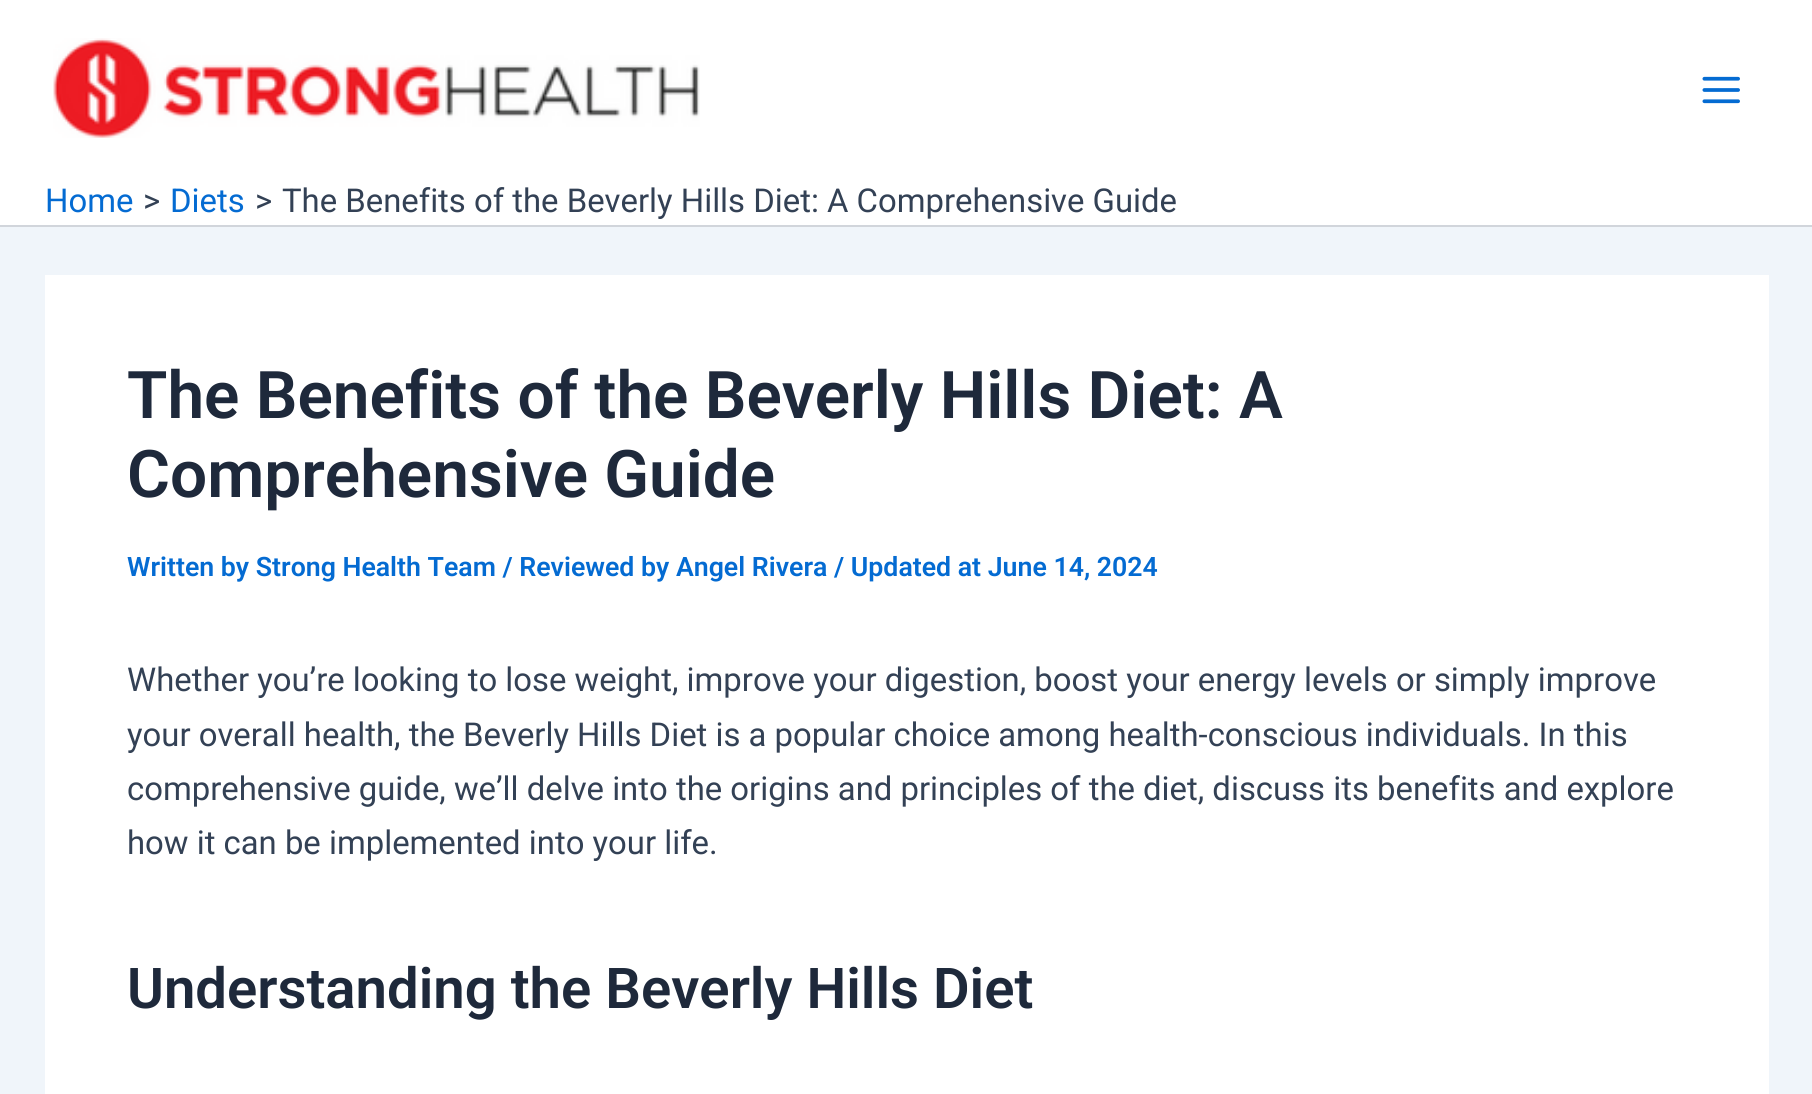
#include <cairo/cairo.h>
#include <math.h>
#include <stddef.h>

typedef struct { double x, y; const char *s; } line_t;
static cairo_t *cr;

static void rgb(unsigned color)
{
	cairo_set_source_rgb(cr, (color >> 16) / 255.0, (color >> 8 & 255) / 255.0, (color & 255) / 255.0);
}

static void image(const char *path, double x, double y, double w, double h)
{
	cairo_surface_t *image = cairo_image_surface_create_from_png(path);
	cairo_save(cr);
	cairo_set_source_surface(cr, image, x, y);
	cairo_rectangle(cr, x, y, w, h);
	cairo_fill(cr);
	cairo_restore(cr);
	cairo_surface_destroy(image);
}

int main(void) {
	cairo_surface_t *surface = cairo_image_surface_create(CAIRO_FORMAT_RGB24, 1812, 1094);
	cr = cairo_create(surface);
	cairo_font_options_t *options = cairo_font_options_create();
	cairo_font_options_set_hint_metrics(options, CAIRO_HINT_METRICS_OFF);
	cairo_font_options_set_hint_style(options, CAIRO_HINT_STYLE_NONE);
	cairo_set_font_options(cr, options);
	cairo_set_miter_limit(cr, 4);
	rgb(0xf0f5fa);
	cairo_paint(cr);
	rgb(0xffffff);
	cairo_rectangle(cr, 0, 0, 1812, 225);
	cairo_fill(cr);
	rgb(0xd1d5db);
	cairo_rectangle(cr, 0, 225, 1812, 2);
	cairo_fill(cr);
	image("img/1.png", 53, 38, 647, 100);
	image("img/2.png", 1702, 76, 38, 28);
	rgb(0xffffff);
	cairo_rectangle(cr, 45, 275, 1724, 819);
	cairo_fill(cr);
	cairo_select_font_face(cr, "Roboto", CAIRO_FONT_SLANT_NORMAL, CAIRO_FONT_WEIGHT_NORMAL);
	cairo_set_font_size(cr, 32.85);
	rgb(0x046bd2);
	cairo_move_to(cr, 45, 212);
	cairo_show_text(cr, "Home");
	rgb(0x334155);
	cairo_move_to(cr, 143, 212);
	cairo_show_text(cr, ">");
	rgb(0x046bd2);
	cairo_move_to(cr, 170, 212);
	cairo_show_text(cr, "Diets");
	rgb(0x334155);
	cairo_move_to(cr, 255, 212);
	cairo_show_text(cr, ">");
	cairo_move_to(cr, 282, 212);
	cairo_show_text(cr, "The Benefits of the Beverly Hills Diet: A Comprehensive Guide");
	cairo_select_font_face(cr, "Roboto SemiBold", CAIRO_FONT_SLANT_NORMAL, CAIRO_FONT_WEIGHT_NORMAL);
	cairo_set_font_size(cr, 65.7);
	rgb(0x1e293b);
	cairo_move_to(cr, 127, 418);
	cairo_show_text(cr, "The Benefits of the Beverly Hills Diet: A");
	cairo_move_to(cr, 127, 497);
	cairo_show_text(cr, "Comprehensive Guide");
	cairo_set_font_size(cr, 26.7);
	rgb(0x046bd2);
	cairo_move_to(cr, 127, 576);
	cairo_show_text(cr, "Written by Strong Health Team / Reviewed by Angel Rivera / Updated at June 14, 2024");
	cairo_select_font_face(cr, "Roboto", CAIRO_FONT_SLANT_NORMAL, CAIRO_FONT_WEIGHT_NORMAL);
	cairo_set_font_size(cr, 32.85);
	rgb(0x334155);
	{
		static const line_t items[] = {
			{127, 691, "Whether you’re looking to lose weight, improve your digestion, boost your energy levels or simply improve"},
			{127, 746, "your overall health, the Beverly Hills Diet is a popular choice among health-conscious individuals. In this"},
			{127, 800, "comprehensive guide, we’ll delve into the origins and principles of the diet, discuss its benefits and explore"},
			{127, 854, "how it can be implemented into your life."},
		};
		for (size_t i = 0; i < sizeof items / sizeof *items; i++) {
			cairo_move_to(cr, items[i].x, items[i].y);
			cairo_show_text(cr, items[i].s);
		}
	}
	cairo_select_font_face(cr, "Roboto SemiBold", CAIRO_FONT_SLANT_NORMAL, CAIRO_FONT_WEIGHT_NORMAL);
	cairo_set_font_size(cr, 56.25);
	rgb(0x1e293b);
	cairo_move_to(cr, 127, 1008);
	cairo_show_text(cr, "Understanding the Beverly Hills Diet");
	cairo_surface_write_to_png(surface, "page.png");
	cairo_font_options_destroy(options);
	cairo_destroy(cr);
	cairo_surface_destroy(surface);
	return 0;
}
